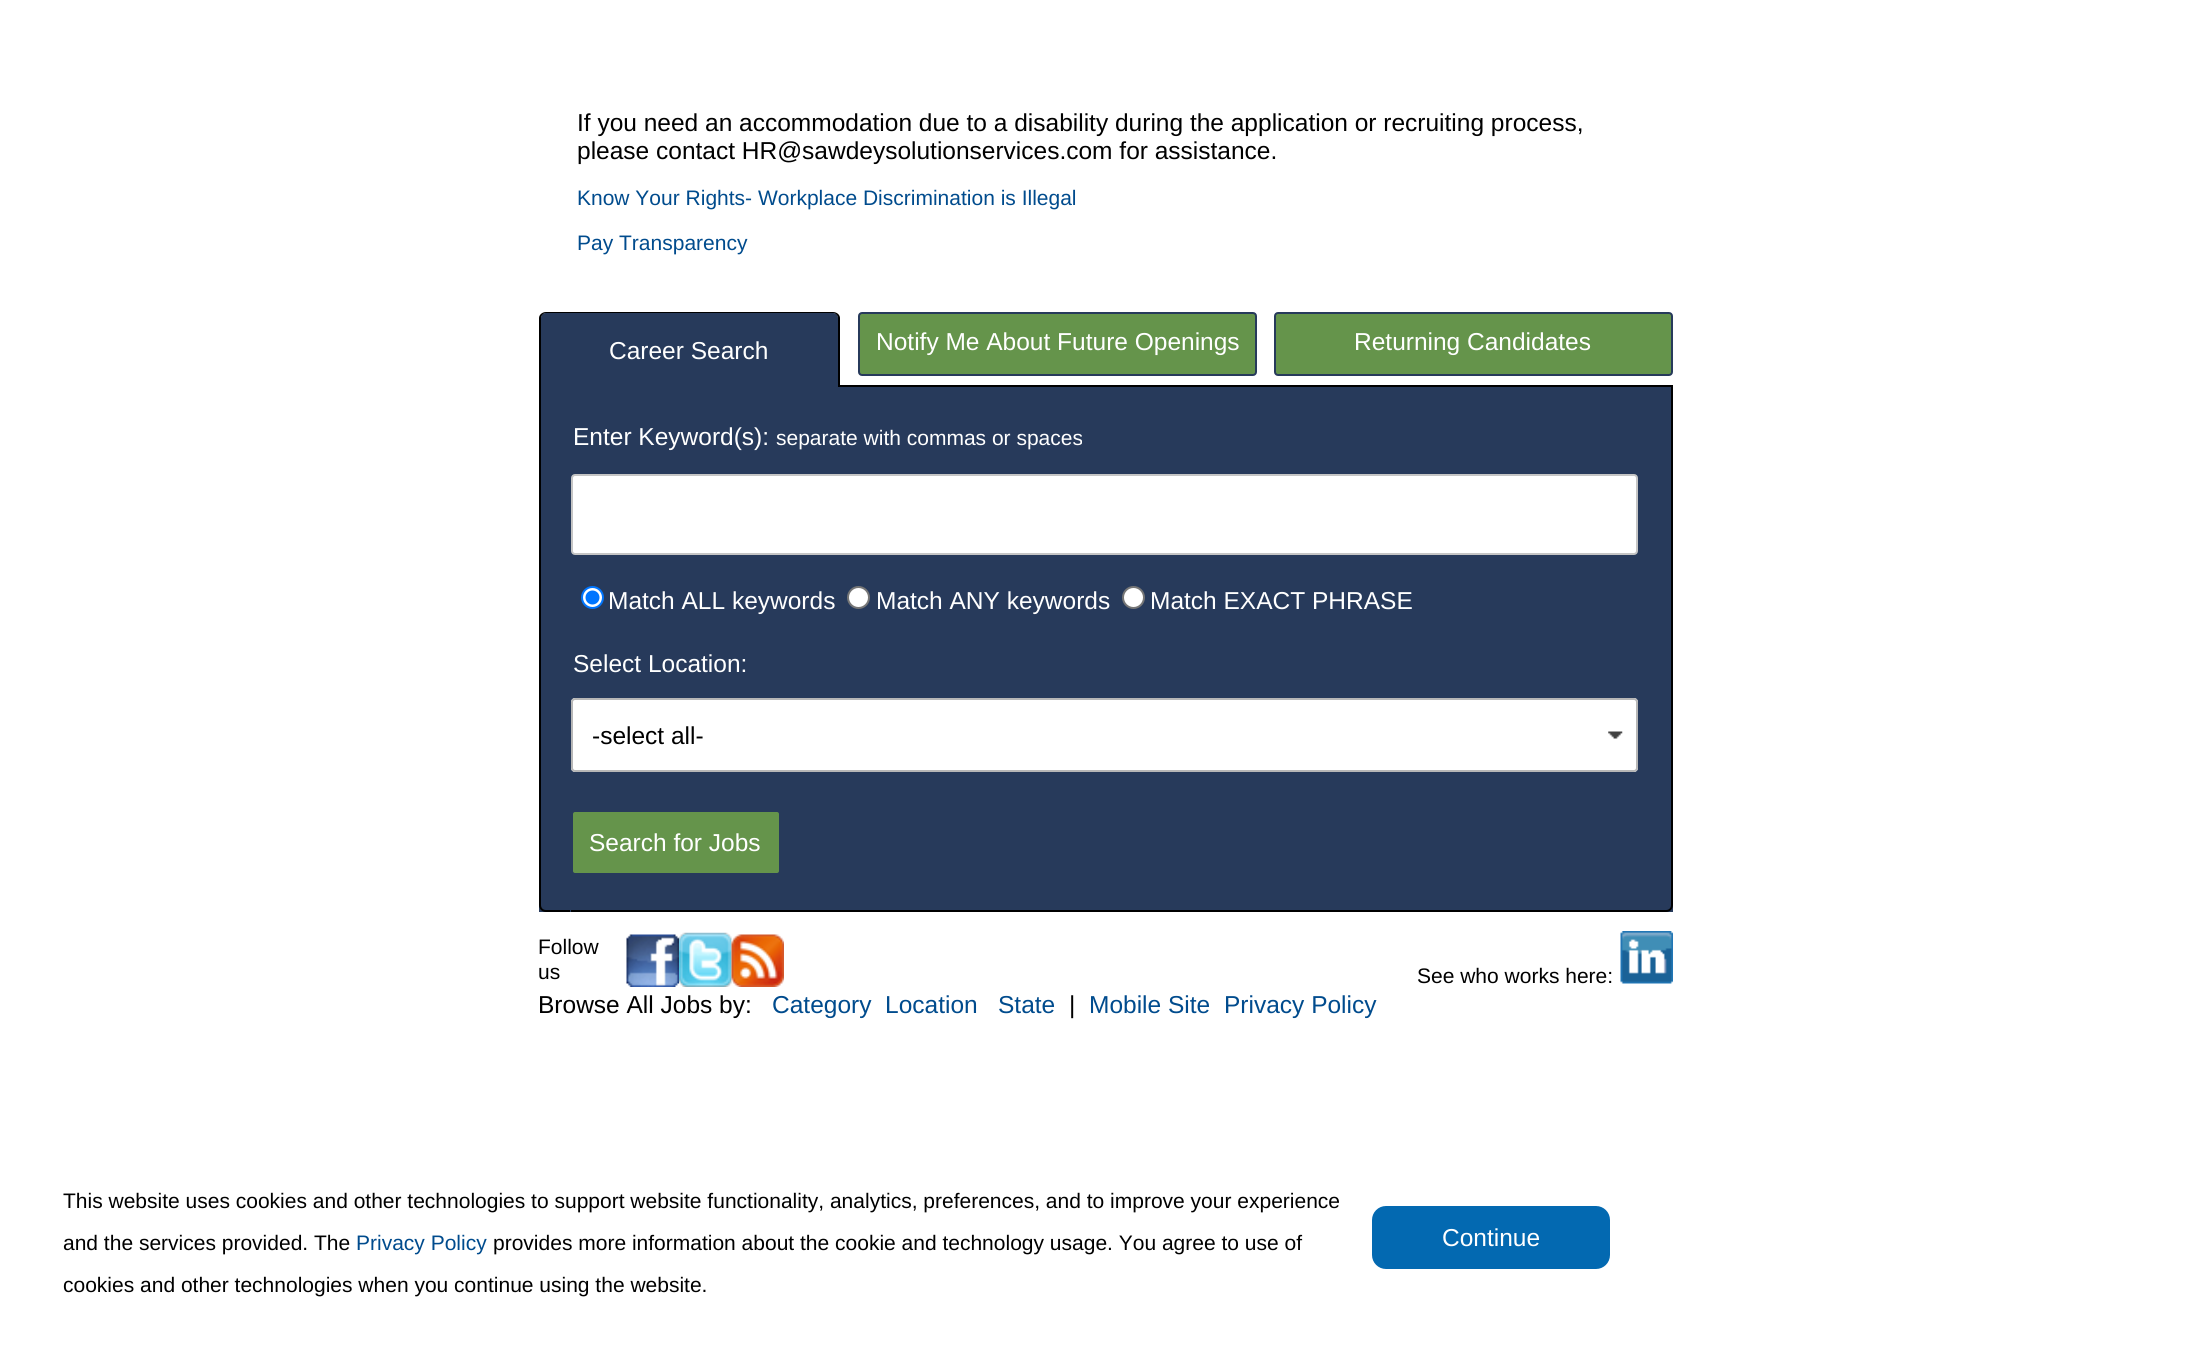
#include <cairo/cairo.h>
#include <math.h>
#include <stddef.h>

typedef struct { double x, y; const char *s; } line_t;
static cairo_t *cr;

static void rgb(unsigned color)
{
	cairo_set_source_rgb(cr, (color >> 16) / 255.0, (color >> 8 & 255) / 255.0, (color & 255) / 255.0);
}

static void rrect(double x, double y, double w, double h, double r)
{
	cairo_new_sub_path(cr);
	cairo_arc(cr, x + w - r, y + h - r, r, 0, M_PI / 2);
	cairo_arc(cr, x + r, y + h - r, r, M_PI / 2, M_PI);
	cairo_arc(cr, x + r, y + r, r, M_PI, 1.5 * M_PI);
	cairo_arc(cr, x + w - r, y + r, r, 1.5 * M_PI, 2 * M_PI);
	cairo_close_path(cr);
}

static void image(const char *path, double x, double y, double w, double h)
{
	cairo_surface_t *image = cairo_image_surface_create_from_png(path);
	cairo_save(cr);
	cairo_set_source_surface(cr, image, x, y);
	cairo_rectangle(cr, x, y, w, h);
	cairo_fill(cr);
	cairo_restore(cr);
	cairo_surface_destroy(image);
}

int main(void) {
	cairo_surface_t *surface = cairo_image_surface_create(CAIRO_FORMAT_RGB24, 2210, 1345);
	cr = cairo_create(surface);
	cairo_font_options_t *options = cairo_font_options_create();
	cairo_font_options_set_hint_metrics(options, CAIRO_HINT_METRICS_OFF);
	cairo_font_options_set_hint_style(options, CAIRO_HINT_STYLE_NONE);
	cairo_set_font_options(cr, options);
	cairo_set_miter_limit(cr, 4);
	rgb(0xffffff);
	cairo_paint(cr);
	rgb(0x273a5b);
	cairo_new_path(cr);
	cairo_move_to(cr, 546, 313);
	cairo_line_to(cr, 833, 313);
	cairo_curve_to(cr, 836, 313, 838, 315, 838, 318);
	cairo_line_to(cr, 838, 387);
	cairo_line_to(cr, 541, 387);
	cairo_line_to(cr, 541, 318);
	cairo_curve_to(cr, 541, 315, 543, 313, 546, 313);
	cairo_close_path(cr);
	cairo_fill(cr);
	rgb(0x000000);
	cairo_set_fill_rule(cr, CAIRO_FILL_RULE_EVEN_ODD);
	cairo_new_path(cr);
	cairo_move_to(cr, 546, 312);
	cairo_line_to(cr, 833, 312);
	cairo_curve_to(cr, 837, 312, 840, 315, 840, 318);
	cairo_line_to(cr, 840, 387);
	cairo_line_to(cr, 539, 387);
	cairo_line_to(cr, 539, 318);
	cairo_curve_to(cr, 539, 315, 542, 312, 546, 312);
	cairo_close_path(cr);
	cairo_move_to(cr, 546, 313);
	cairo_line_to(cr, 833, 313);
	cairo_curve_to(cr, 836, 313, 838, 316, 838, 318);
	cairo_line_to(cr, 838, 387);
	cairo_line_to(cr, 541, 387);
	cairo_line_to(cr, 541, 318);
	cairo_curve_to(cr, 541, 316, 543, 313, 546, 313);
	cairo_close_path(cr);
	cairo_fill(cr);
	cairo_rectangle(cr, 840, 385, 833, 2);
	cairo_fill(cr);
	rgb(0x65944b);
	rrect(859, 313, 397, 62, 3);
	cairo_fill_preserve(cr);
	rgb(0x273a5b);
	cairo_stroke(cr);
	rgb(0x65944b);
	rrect(1275, 313, 397, 62, 3);
	cairo_fill_preserve(cr);
	rgb(0x273a5b);
	cairo_stroke(cr);
	cairo_rectangle(cr, 539, 387, 1134, 525);
	cairo_fill(cr);
	rgb(0x000000);
	cairo_new_path(cr);
	cairo_move_to(cr, 539, 387);
	cairo_line_to(cr, 570, 387);
	cairo_line_to(cr, 570, 912);
	cairo_line_to(cr, 546, 912);
	cairo_curve_to(cr, 542, 912, 539, 909, 539, 905);
	cairo_close_path(cr);
	cairo_move_to(cr, 541, 387);
	cairo_line_to(cr, 570, 387);
	cairo_line_to(cr, 570, 910);
	cairo_line_to(cr, 546, 910);
	cairo_curve_to(cr, 543, 910, 541, 908, 541, 905);
	cairo_close_path(cr);
	cairo_fill(cr);
	cairo_rectangle(cr, 571, 910, 1071, 2);
	cairo_fill(cr);
	rgb(0xffffff);
	rrect(572, 475, 1065, 79, 3);
	cairo_fill_preserve(cr);
	rgb(0xc5c5c5);
	cairo_stroke(cr);
	rgb(0xffffff);
	cairo_arc(cr, 592.5, 597.5, 10.5, 0, 2 * M_PI);
	cairo_fill_preserve(cr);
	rgb(0x0075ff);
	cairo_stroke(cr);
	cairo_arc(cr, 592.5, 597.5, 7, 0, 2 * M_PI);
	cairo_fill(cr);
	rgb(0xffffff);
	cairo_arc(cr, 858.5, 597.5, 10.5, 0, 2 * M_PI);
	cairo_fill_preserve(cr);
	rgb(0x767676);
	cairo_stroke(cr);
	rgb(0xffffff);
	cairo_arc(cr, 1133.5, 597.5, 10.5, 0, 2 * M_PI);
	cairo_fill_preserve(cr);
	rgb(0x767676);
	cairo_stroke(cr);
	rgb(0xffffff);
	rrect(571, 698, 1067, 74, 4);
	cairo_fill(cr);
	image("img/1.png", 1608, 731, 15, 8);
	rrect(572, 699, 1065, 72, 3);
	rgb(0xb7b7b7);
	cairo_stroke(cr);
	rgb(0x65944b);
	rrect(572, 811, 208, 63, 3);
	cairo_fill_preserve(cr);
	rgb(0x273a5b);
	cairo_stroke(cr);
	rgb(0x000000);
	cairo_new_path(cr);
	cairo_move_to(cr, 1642, 387);
	cairo_line_to(cr, 1673, 387);
	cairo_line_to(cr, 1673, 905);
	cairo_curve_to(cr, 1673, 909, 1670, 912, 1666, 912);
	cairo_line_to(cr, 1642, 912);
	cairo_close_path(cr);
	cairo_move_to(cr, 1642, 387);
	cairo_line_to(cr, 1671, 387);
	cairo_line_to(cr, 1671, 905);
	cairo_curve_to(cr, 1671, 908, 1669, 910, 1666, 910);
	cairo_line_to(cr, 1642, 910);
	cairo_close_path(cr);
	cairo_fill(cr);
	image("img/2.png", 626, 934, 53, 53);
	image("img/3.png", 679, 932, 53, 55);
	image("img/4.png", 731, 934, 53, 53);
	image("img/5.png", 1620, 931, 53, 53);
	rgb(0x0369b1);
	rrect(1372, 1206, 238, 63, 14);
	cairo_fill(cr);
	cairo_select_font_face(cr, "Liberation Sans", CAIRO_FONT_SLANT_NORMAL, CAIRO_FONT_WEIGHT_NORMAL);
	cairo_set_font_size(cr, 24.5);
	rgb(0x000000);
	cairo_move_to(cr, 577, 131);
	cairo_show_text(cr, "If you need an accommodation due to a disability during the application or recruiting process,");
	cairo_move_to(cr, 577, 159);
	cairo_show_text(cr, "please contact HR@sawdeysolutionservices.com for assistance.");
	cairo_set_font_size(cr, 21);
	rgb(0x004b8d);
	cairo_move_to(cr, 577, 205);
	cairo_show_text(cr, "Know Your Rights- Workplace Discrimination is Illegal");
	cairo_move_to(cr, 577, 250);
	cairo_show_text(cr, "Pay Transparency");
	cairo_set_font_size(cr, 24.5);
	rgb(0xffffff);
	{
		static const line_t items[] = {
			{609, 359, "Career Search"},
			{876, 350, "Notify Me About Future Openings"},
			{1354, 350, "Returning Candidates"},
			{573, 445, "Enter Keyword(s):"},
		};
		for (size_t i = 0; i < sizeof items / sizeof *items; i++) {
			cairo_move_to(cr, items[i].x, items[i].y);
			cairo_show_text(cr, items[i].s);
		}
	}
	cairo_set_font_size(cr, 21);
	cairo_move_to(cr, 776, 445);
	cairo_show_text(cr, "separate with commas or spaces");
	cairo_set_font_size(cr, 24.5);
	{
		static const line_t items[] = {
			{608, 609, "Match ALL keywords"},
			{876, 609, "Match ANY keywords"},
			{1150, 609, "Match EXACT PHRASE"},
			{573, 672, "Select Location:"},
		};
		for (size_t i = 0; i < sizeof items / sizeof *items; i++) {
			cairo_move_to(cr, items[i].x, items[i].y);
			cairo_show_text(cr, items[i].s);
		}
	}
	rgb(0x000000);
	cairo_move_to(cr, 592, 744);
	cairo_show_text(cr, "-select all-");
	rgb(0xffffff);
	cairo_move_to(cr, 589, 851);
	cairo_show_text(cr, "Search for Jobs");
	cairo_set_font_size(cr, 21);
	rgb(0x000000);
	{
		static const line_t items[] = {
			{538, 954, "Follow"},
			{538, 979, "us"},
			{1417, 983, "See who works here:"},
		};
		for (size_t i = 0; i < sizeof items / sizeof *items; i++) {
			cairo_move_to(cr, items[i].x, items[i].y);
			cairo_show_text(cr, items[i].s);
		}
	}
	cairo_set_font_size(cr, 24.5);
	cairo_move_to(cr, 538, 1013);
	cairo_show_text(cr, "Browse All Jobs by:");
	rgb(0x004b8d);
	{
		static const line_t items[] = {
			{772, 1013, "Category"},
			{885, 1013, "Location"},
			{998, 1013, "State"},
		};
		for (size_t i = 0; i < sizeof items / sizeof *items; i++) {
			cairo_move_to(cr, items[i].x, items[i].y);
			cairo_show_text(cr, items[i].s);
		}
	}
	rgb(0x000000);
	cairo_move_to(cr, 1069, 1013);
	cairo_show_text(cr, "|");
	rgb(0x004b8d);
	cairo_move_to(cr, 1089, 1013);
	cairo_show_text(cr, "Mobile Site");
	cairo_move_to(cr, 1224, 1013);
	cairo_show_text(cr, "Privacy Policy");
	cairo_set_font_size(cr, 21);
	rgb(0x000000);
	cairo_move_to(cr, 63, 1208);
	cairo_show_text(cr, "This website uses cookies and other technologies to support website functionality, analytics, preferences, and to improve your experience");
	cairo_move_to(cr, 63, 1250);
	cairo_show_text(cr, "and the services provided. The");
	rgb(0x004b8d);
	cairo_move_to(cr, 356, 1250);
	cairo_show_text(cr, "Privacy Policy");
	rgb(0x000000);
	cairo_move_to(cr, 493, 1250);
	cairo_show_text(cr, "provides more information about the cookie and technology usage. You agree to use of");
	cairo_move_to(cr, 63, 1292);
	cairo_show_text(cr, "cookies and other technologies when you continue using the website.");
	cairo_set_font_size(cr, 24.5);
	rgb(0xffffff);
	cairo_move_to(cr, 1442, 1246);
	cairo_show_text(cr, "Continue");
	cairo_surface_write_to_png(surface, "page.png");
	cairo_font_options_destroy(options);
	cairo_destroy(cr);
	cairo_surface_destroy(surface);
	return 0;
}
